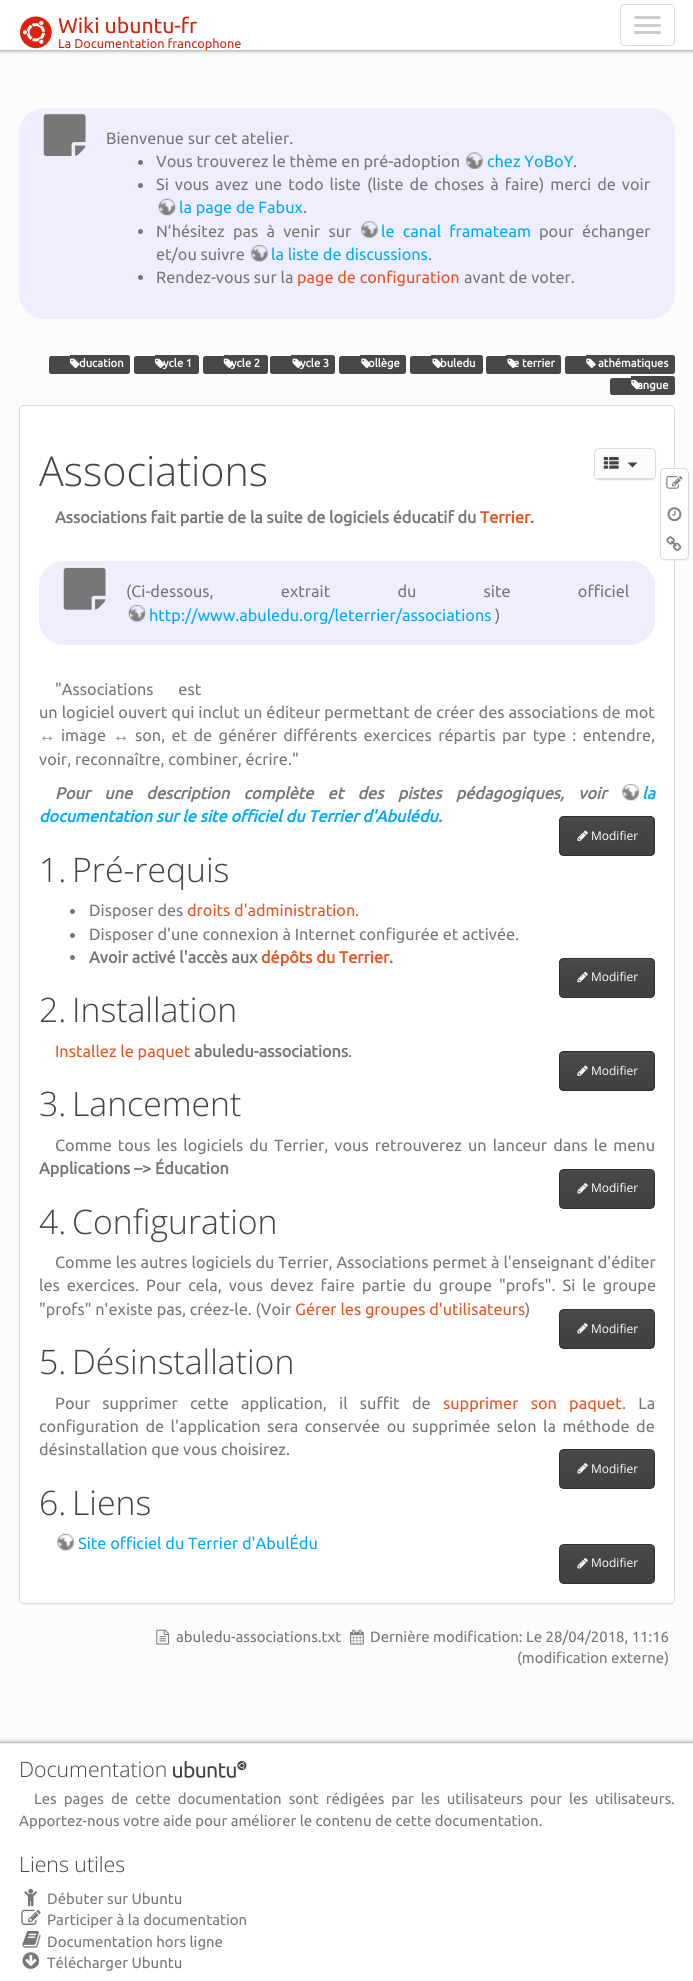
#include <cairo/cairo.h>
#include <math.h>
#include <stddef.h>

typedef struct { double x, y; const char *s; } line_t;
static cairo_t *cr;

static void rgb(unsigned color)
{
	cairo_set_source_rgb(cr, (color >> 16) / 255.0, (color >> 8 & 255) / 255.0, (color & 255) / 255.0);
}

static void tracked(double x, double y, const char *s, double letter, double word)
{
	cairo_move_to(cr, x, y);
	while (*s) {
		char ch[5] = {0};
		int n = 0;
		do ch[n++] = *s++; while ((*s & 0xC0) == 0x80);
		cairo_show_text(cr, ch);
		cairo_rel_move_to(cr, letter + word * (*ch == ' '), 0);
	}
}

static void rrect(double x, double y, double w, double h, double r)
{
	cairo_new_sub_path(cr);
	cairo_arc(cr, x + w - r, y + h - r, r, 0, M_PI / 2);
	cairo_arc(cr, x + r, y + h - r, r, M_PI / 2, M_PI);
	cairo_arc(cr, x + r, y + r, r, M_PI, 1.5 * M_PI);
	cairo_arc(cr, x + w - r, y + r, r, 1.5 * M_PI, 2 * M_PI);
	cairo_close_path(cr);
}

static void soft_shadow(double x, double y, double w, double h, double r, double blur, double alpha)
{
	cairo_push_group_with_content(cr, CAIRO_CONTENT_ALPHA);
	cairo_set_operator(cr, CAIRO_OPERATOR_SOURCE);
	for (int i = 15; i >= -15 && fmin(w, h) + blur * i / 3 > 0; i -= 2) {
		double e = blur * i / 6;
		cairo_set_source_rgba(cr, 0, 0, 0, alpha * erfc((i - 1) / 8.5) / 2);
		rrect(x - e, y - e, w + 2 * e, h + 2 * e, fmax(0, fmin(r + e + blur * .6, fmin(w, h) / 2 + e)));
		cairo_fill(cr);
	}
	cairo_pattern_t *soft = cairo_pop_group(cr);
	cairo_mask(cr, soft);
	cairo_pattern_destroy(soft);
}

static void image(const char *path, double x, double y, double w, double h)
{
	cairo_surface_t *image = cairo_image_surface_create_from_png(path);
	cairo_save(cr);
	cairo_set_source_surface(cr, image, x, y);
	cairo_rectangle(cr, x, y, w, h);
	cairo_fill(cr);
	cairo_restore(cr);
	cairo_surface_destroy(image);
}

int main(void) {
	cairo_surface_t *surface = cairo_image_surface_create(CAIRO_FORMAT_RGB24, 693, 1981);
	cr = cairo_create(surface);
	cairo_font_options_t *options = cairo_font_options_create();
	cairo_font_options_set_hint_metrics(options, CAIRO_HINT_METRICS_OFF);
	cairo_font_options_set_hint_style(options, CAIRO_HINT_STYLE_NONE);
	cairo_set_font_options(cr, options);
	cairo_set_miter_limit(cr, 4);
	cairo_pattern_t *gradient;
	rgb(0xfcfcfc);
	cairo_paint(cr);
	rgb(0x777777);
	soft_shadow(0, 0, 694, 50, 0, 2.5, 1);
	rgb(0xffffff);
	cairo_rectangle(cr, 0, 0, 693, 50);
	cairo_fill(cr);
	image("img/1.png", 20, 16, 32, 33);
	rrect(620.5, 4.5, 54, 41, 4.5);
	rgb(0xdddddd);
	cairo_set_line_width(cr, 1);
	cairo_stroke(cr);
	rgb(0xcccccc);
	rrect(634, 16, 27, 3, 1.5);
	cairo_fill(cr);
	rrect(634, 24, 27, 3, 1.5);
	cairo_fill(cr);
	rrect(634, 31, 27, 3, 1.5);
	cairo_fill(cr);
	rgb(0xeeeeff);
	rrect(19, 108, 656, 211, 25);
	cairo_fill(cr);
	image("img/2.png", 43, 114, 43, 42);
	rgb(0x777777);
	cairo_arc(cr, 140.5, 162.5, 2.5, 0, 2 * M_PI);
	cairo_fill(cr);
	image("img/3.png", 466, 152, 18, 18);
	cairo_arc(cr, 140.5, 185.5, 2.5, 0, 2 * M_PI);
	cairo_fill(cr);
	image("img/4.png", 158, 198, 18, 19);
	cairo_arc(cr, 140.5, 231.5, 2.5, 0, 2 * M_PI);
	cairo_fill(cr);
	image("img/5.png", 361, 221, 18, 18);
	image("img/6.png", 251, 245, 18, 18);
	cairo_arc(cr, 140.5, 277.5, 2.5, 0, 2 * M_PI);
	cairo_fill(cr);
	rgb(0x474949);
	cairo_new_path(cr);
	cairo_move_to(cr, 51.5, 356);
	cairo_line_to(cr, 70, 356);
	cairo_line_to(cr, 70, 374);
	cairo_line_to(cr, 51.5, 374);
	cairo_curve_to(cr, 50, 374, 49, 373, 49, 371.5);
	cairo_line_to(cr, 49, 358.5);
	cairo_curve_to(cr, 49, 357, 50, 356, 51.5, 356);
	cairo_close_path(cr);
	cairo_fill(cr);
	cairo_rectangle(cr, 70, 355, 3, 19);
	cairo_fill(cr);
	cairo_new_path(cr);
	cairo_move_to(cr, 73, 355);
	cairo_line_to(cr, 127.5, 355);
	cairo_curve_to(cr, 129, 355, 130, 356, 130, 357.5);
	cairo_line_to(cr, 130, 371.5);
	cairo_curve_to(cr, 130, 373, 129, 374, 127.5, 374);
	cairo_line_to(cr, 73, 374);
	cairo_close_path(cr);
	cairo_fill(cr);
	image("img/7.png", 70, 358, 10, 11);
	cairo_new_path(cr);
	cairo_move_to(cr, 136.5, 356);
	cairo_line_to(cr, 155, 356);
	cairo_line_to(cr, 155, 374);
	cairo_line_to(cr, 136.5, 374);
	cairo_curve_to(cr, 135, 374, 134, 373, 134, 371.5);
	cairo_line_to(cr, 134, 358.5);
	cairo_curve_to(cr, 134, 357, 135, 356, 136.5, 356);
	cairo_close_path(cr);
	cairo_fill(cr);
	cairo_rectangle(cr, 155, 355, 3, 19);
	cairo_fill(cr);
	cairo_new_path(cr);
	cairo_move_to(cr, 158, 355);
	cairo_line_to(cr, 196.5, 355);
	cairo_curve_to(cr, 198, 355, 199, 356, 199, 357.5);
	cairo_line_to(cr, 199, 371.5);
	cairo_curve_to(cr, 199, 373, 198, 374, 196.5, 374);
	cairo_line_to(cr, 158, 374);
	cairo_close_path(cr);
	cairo_fill(cr);
	image("img/7.png", 155, 358, 10, 11);
	cairo_new_path(cr);
	cairo_move_to(cr, 205.5, 356);
	cairo_line_to(cr, 224, 356);
	cairo_line_to(cr, 224, 374);
	cairo_line_to(cr, 205.5, 374);
	cairo_curve_to(cr, 204, 374, 203, 373, 203, 371.5);
	cairo_line_to(cr, 203, 358.5);
	cairo_curve_to(cr, 203, 357, 204, 356, 205.5, 356);
	cairo_close_path(cr);
	cairo_fill(cr);
	cairo_rectangle(cr, 224, 355, 2, 19);
	cairo_fill(cr);
	cairo_new_path(cr);
	cairo_move_to(cr, 226, 355);
	cairo_line_to(cr, 265.5, 355);
	cairo_curve_to(cr, 267, 355, 268, 356, 268, 357.5);
	cairo_line_to(cr, 268, 371.5);
	cairo_curve_to(cr, 268, 373, 267, 374, 265.5, 374);
	cairo_line_to(cr, 226, 374);
	cairo_close_path(cr);
	cairo_fill(cr);
	image("img/8.png", 223, 358, 11, 11);
	cairo_new_path(cr);
	cairo_move_to(cr, 272.5, 356);
	cairo_line_to(cr, 291, 356);
	cairo_line_to(cr, 291, 374);
	cairo_line_to(cr, 272.5, 374);
	cairo_curve_to(cr, 271, 374, 270, 373, 270, 371.5);
	cairo_line_to(cr, 270, 358.5);
	cairo_curve_to(cr, 270, 357, 271, 356, 272.5, 356);
	cairo_close_path(cr);
	cairo_fill(cr);
	cairo_rectangle(cr, 291, 355, 3, 19);
	cairo_fill(cr);
	cairo_new_path(cr);
	cairo_move_to(cr, 294, 355);
	cairo_line_to(cr, 332.5, 355);
	cairo_curve_to(cr, 334, 355, 335, 356, 335, 357.5);
	cairo_line_to(cr, 335, 371.5);
	cairo_curve_to(cr, 335, 373, 334, 374, 332.5, 374);
	cairo_line_to(cr, 294, 374);
	cairo_close_path(cr);
	cairo_fill(cr);
	image("img/9.png", 292, 358, 10, 11);
	cairo_new_path(cr);
	cairo_move_to(cr, 341.5, 356);
	cairo_line_to(cr, 360, 356);
	cairo_line_to(cr, 360, 374);
	cairo_line_to(cr, 341.5, 374);
	cairo_curve_to(cr, 340, 374, 339, 373, 339, 371.5);
	cairo_line_to(cr, 339, 358.5);
	cairo_curve_to(cr, 339, 357, 340, 356, 341.5, 356);
	cairo_close_path(cr);
	cairo_fill(cr);
	cairo_rectangle(cr, 360, 355, 3, 19);
	cairo_fill(cr);
	cairo_new_path(cr);
	cairo_move_to(cr, 363, 355);
	cairo_line_to(cr, 403.5, 355);
	cairo_curve_to(cr, 405, 355, 406, 356, 406, 357.5);
	cairo_line_to(cr, 406, 371.5);
	cairo_curve_to(cr, 406, 373, 405, 374, 403.5, 374);
	cairo_line_to(cr, 363, 374);
	cairo_close_path(cr);
	cairo_fill(cr);
	image("img/10.png", 361, 358, 10, 11);
	cairo_new_path(cr);
	cairo_move_to(cr, 412.5, 356);
	cairo_line_to(cr, 431, 356);
	cairo_line_to(cr, 431, 374);
	cairo_line_to(cr, 412.5, 374);
	cairo_curve_to(cr, 411, 374, 410, 373, 410, 371.5);
	cairo_line_to(cr, 410, 358.5);
	cairo_curve_to(cr, 410, 357, 411, 356, 412.5, 356);
	cairo_close_path(cr);
	cairo_fill(cr);
	cairo_rectangle(cr, 431, 355, 3, 19);
	cairo_fill(cr);
	cairo_new_path(cr);
	cairo_move_to(cr, 434, 355);
	cairo_line_to(cr, 480.5, 355);
	cairo_curve_to(cr, 482, 355, 483, 356, 483, 357.5);
	cairo_line_to(cr, 483, 371.5);
	cairo_curve_to(cr, 483, 373, 482, 374, 480.5, 374);
	cairo_line_to(cr, 434, 374);
	cairo_close_path(cr);
	cairo_fill(cr);
	image("img/9.png", 432, 358, 10, 11);
	cairo_new_path(cr);
	cairo_move_to(cr, 488.5, 356);
	cairo_line_to(cr, 506, 356);
	cairo_line_to(cr, 506, 374);
	cairo_line_to(cr, 488.5, 374);
	cairo_curve_to(cr, 487, 374, 486, 373, 486, 371.5);
	cairo_line_to(cr, 486, 358.5);
	cairo_curve_to(cr, 486, 357, 487, 356, 488.5, 356);
	cairo_close_path(cr);
	cairo_fill(cr);
	cairo_rectangle(cr, 506, 355, 4, 19);
	cairo_fill(cr);
	cairo_new_path(cr);
	cairo_move_to(cr, 510, 355);
	cairo_line_to(cr, 558.5, 355);
	cairo_curve_to(cr, 560, 355, 561, 356, 561, 357.5);
	cairo_line_to(cr, 561, 371.5);
	cairo_curve_to(cr, 561, 373, 560, 374, 558.5, 374);
	cairo_line_to(cr, 510, 374);
	cairo_close_path(cr);
	cairo_fill(cr);
	image("img/9.png", 507, 358, 10, 11);
	cairo_new_path(cr);
	cairo_move_to(cr, 567.5, 356);
	cairo_line_to(cr, 586, 356);
	cairo_line_to(cr, 586, 374);
	cairo_line_to(cr, 567.5, 374);
	cairo_curve_to(cr, 566, 374, 565, 373, 565, 371.5);
	cairo_line_to(cr, 565, 358.5);
	cairo_curve_to(cr, 565, 357, 566, 356, 567.5, 356);
	cairo_close_path(cr);
	cairo_fill(cr);
	cairo_rectangle(cr, 586, 355, 3, 19);
	cairo_fill(cr);
	cairo_new_path(cr);
	cairo_move_to(cr, 589, 355);
	cairo_line_to(cr, 672.5, 355);
	cairo_curve_to(cr, 674, 355, 675, 356, 675, 357.5);
	cairo_line_to(cr, 675, 371.5);
	cairo_curve_to(cr, 675, 373, 674, 374, 672.5, 374);
	cairo_line_to(cr, 589, 374);
	cairo_close_path(cr);
	cairo_fill(cr);
	image("img/10.png", 586, 358, 10, 11);
	cairo_new_path(cr);
	cairo_move_to(cr, 612.5, 378);
	cairo_line_to(cr, 631, 378);
	cairo_line_to(cr, 631, 395);
	cairo_line_to(cr, 612.5, 395);
	cairo_curve_to(cr, 611, 395, 610, 394, 610, 392.5);
	cairo_line_to(cr, 610, 380.5);
	cairo_curve_to(cr, 610, 379, 611, 378, 612.5, 378);
	cairo_close_path(cr);
	cairo_fill(cr);
	cairo_rectangle(cr, 631, 376, 3, 19);
	cairo_fill(cr);
	cairo_new_path(cr);
	cairo_move_to(cr, 634, 376);
	cairo_line_to(cr, 672.5, 376);
	cairo_curve_to(cr, 674, 376, 675, 377, 675, 378.5);
	cairo_line_to(cr, 675, 392.5);
	cairo_curve_to(cr, 675, 394, 674, 395, 672.5, 395);
	cairo_line_to(cr, 634, 395);
	cairo_close_path(cr);
	cairo_fill(cr);
	image("img/11.png", 631, 379, 10, 11);
	rgb(0x000000);
	soft_shadow(19, 406, 656, 1199, 5, 0.5, 0.05);
	rgb(0xffffff);
	rrect(19.5, 405.5, 655, 1198, 4.5);
	cairo_fill_preserve(cr);
	rgb(0xdddddd);
	cairo_stroke(cr);
	rgb(0x000000);
	soft_shadow(594, 449, 62, 32, 5, 0.5, 0.05);
	rrect(594.5, 448.5, 61, 31, 4.5);
	rgb(0xdddddd);
	cairo_stroke(cr);
	rgb(0xfcfcfc);
	cairo_new_path(cr);
	cairo_move_to(cr, 599, 449);
	cairo_line_to(cr, 651, 449);
	cairo_curve_to(cr, 653, 449, 655, 451, 655, 453);
	cairo_line_to(cr, 655, 479);
	cairo_line_to(cr, 595, 479);
	cairo_line_to(cr, 595, 453);
	cairo_curve_to(cr, 595, 451, 597, 449, 599, 449);
	cairo_close_path(cr);
	cairo_fill(cr);
	rgb(0xdddddd);
	cairo_rectangle(cr, 595, 478, 60, 1);
	cairo_fill(cr);
	image("img/12.png", 603, 456, 16, 13);
	rgb(0x444444);
	cairo_new_path(cr);
	cairo_move_to(cr, 627.5, 462.5);
	cairo_line_to(cr, 637.5, 462.5);
	cairo_line_to(cr, 632.5, 467.5);
	cairo_close_path(cr);
	cairo_fill(cr);
	rgb(0xeeeeff);
	rrect(39, 561, 616, 84, 25);
	cairo_fill(cr);
	image("img/13.png", 63, 567, 43, 43);
	image("img/14.png", 128, 605, 18, 18);
	image("img/15.png", 622, 784, 18, 17);
	rgb(0x474949);
	rrect(559, 816, 96, 40, 5);
	cairo_fill(cr);
	gradient = cairo_pattern_create_linear(607, 818, 607, 855);
	cairo_pattern_add_color_stop_rgba(gradient, 0, 0.31, 0.318, 0.318, 1);
	cairo_pattern_add_color_stop_rgba(gradient, 0.06, 0.278, 0.286, 0.286, 1);
	cairo_pattern_add_color_stop_rgba(gradient, 1, 0.247, 0.255, 0.255, 1);
	cairo_set_source(cr, gradient);
	cairo_pattern_destroy(gradient);
	cairo_rectangle(cr, 560, 818, 94, 37);
	cairo_fill(cr);
	rrect(559.5, 816.5, 95, 39, 4.5);
	rgb(0x2e2f2f);
	cairo_stroke(cr);
	image("img/16.png", 577, 830, 11, 11);
	rgb(0x777777);
	cairo_arc(cr, 72.5, 911.5, 2.5, 0, 2 * M_PI);
	cairo_fill(cr);
	cairo_arc(cr, 72.5, 935.5, 2.5, 0, 2 * M_PI);
	cairo_fill(cr);
	cairo_arc(cr, 72.5, 957.5, 2.5, 0, 2 * M_PI);
	cairo_fill(cr);
	rgb(0x474949);
	rrect(559, 958, 96, 40, 5);
	cairo_fill(cr);
	gradient = cairo_pattern_create_linear(607, 959, 607, 996);
	cairo_pattern_add_color_stop_rgba(gradient, 0, 0.31, 0.318, 0.318, 1);
	cairo_pattern_add_color_stop_rgba(gradient, 0.06, 0.278, 0.286, 0.286, 1);
	cairo_pattern_add_color_stop_rgba(gradient, 1, 0.247, 0.255, 0.255, 1);
	cairo_set_source(cr, gradient);
	cairo_pattern_destroy(gradient);
	cairo_rectangle(cr, 560, 959, 94, 37);
	cairo_fill(cr);
	rrect(559.5, 958.5, 95, 39, 4.5);
	rgb(0x2e2f2f);
	cairo_stroke(cr);
	image("img/17.png", 577, 971, 11, 12);
	rgb(0x474949);
	rrect(559, 1051, 96, 40, 5);
	cairo_fill(cr);
	gradient = cairo_pattern_create_linear(607, 1053, 607, 1090);
	cairo_pattern_add_color_stop_rgba(gradient, 0, 0.31, 0.318, 0.318, 1);
	cairo_pattern_add_color_stop_rgba(gradient, 0.06, 0.278, 0.286, 0.286, 1);
	cairo_pattern_add_color_stop_rgba(gradient, 1, 0.247, 0.255, 0.255, 1);
	cairo_set_source(cr, gradient);
	cairo_pattern_destroy(gradient);
	cairo_rectangle(cr, 560, 1053, 94, 37);
	cairo_fill(cr);
	rrect(559.5, 1051.5, 95, 39, 4.5);
	rgb(0x2e2f2f);
	cairo_stroke(cr);
	image("img/16.png", 577, 1065, 11, 11);
	cairo_save(cr);
	rrect(559, 1169, 96, 40, 5);
	cairo_clip(cr);
	gradient = cairo_pattern_create_linear(607, 1170, 607, 1208);
	cairo_pattern_add_color_stop_rgba(gradient, 0, 0.31, 0.318, 0.318, 1);
	cairo_pattern_add_color_stop_rgba(gradient, 0.06, 0.278, 0.286, 0.286, 1);
	cairo_pattern_add_color_stop_rgba(gradient, 1, 0.247, 0.255, 0.255, 1);
	cairo_set_source(cr, gradient);
	cairo_pattern_destroy(gradient);
	cairo_rectangle(cr, 560, 1170, 94, 38);
	cairo_fill(cr);
	cairo_restore(cr);
	rrect(559.5, 1169.5, 95, 39, 4.5);
	cairo_stroke(cr);
	image("img/18.png", 577, 1183, 11, 11);
	cairo_save(cr);
	rrect(559, 1309, 96, 40, 5);
	cairo_clip(cr);
	gradient = cairo_pattern_create_linear(607, 1310, 607, 1348);
	cairo_pattern_add_color_stop_rgba(gradient, 0, 0.31, 0.318, 0.318, 1);
	cairo_pattern_add_color_stop_rgba(gradient, 0.06, 0.278, 0.286, 0.286, 1);
	cairo_pattern_add_color_stop_rgba(gradient, 1, 0.247, 0.255, 0.255, 1);
	cairo_set_source(cr, gradient);
	cairo_pattern_destroy(gradient);
	cairo_rectangle(cr, 560, 1310, 94, 38);
	cairo_fill(cr);
	cairo_restore(cr);
	rrect(559.5, 1309.5, 95, 39, 4.5);
	cairo_stroke(cr);
	image("img/18.png", 577, 1323, 11, 11);
	cairo_save(cr);
	rrect(559, 1449, 96, 40, 5);
	cairo_clip(cr);
	gradient = cairo_pattern_create_linear(607, 1450, 607, 1488);
	cairo_pattern_add_color_stop_rgba(gradient, 0, 0.31, 0.318, 0.318, 1);
	cairo_pattern_add_color_stop_rgba(gradient, 0.06, 0.278, 0.286, 0.286, 1);
	cairo_pattern_add_color_stop_rgba(gradient, 1, 0.247, 0.255, 0.255, 1);
	cairo_set_source(cr, gradient);
	cairo_pattern_destroy(gradient);
	cairo_rectangle(cr, 560, 1450, 94, 38);
	cairo_fill(cr);
	cairo_restore(cr);
	rrect(559.5, 1449.5, 95, 39, 4.5);
	cairo_stroke(cr);
	image("img/18.png", 577, 1463, 11, 11);
	image("img/19.png", 57, 1533, 18, 19);
	cairo_save(cr);
	rrect(559, 1544, 96, 40, 5);
	cairo_clip(cr);
	gradient = cairo_pattern_create_linear(607, 1545, 607, 1583);
	cairo_pattern_add_color_stop_rgba(gradient, 0, 0.31, 0.318, 0.318, 1);
	cairo_pattern_add_color_stop_rgba(gradient, 0.06, 0.278, 0.286, 0.286, 1);
	cairo_pattern_add_color_stop_rgba(gradient, 1, 0.247, 0.255, 0.255, 1);
	cairo_set_source(cr, gradient);
	cairo_pattern_destroy(gradient);
	cairo_rectangle(cr, 560, 1545, 94, 38);
	cairo_fill(cr);
	cairo_restore(cr);
	rrect(559.5, 1544.5, 95, 39, 4.5);
	cairo_stroke(cr);
	image("img/18.png", 577, 1558, 11, 11);
	rgb(0x000000);
	soft_shadow(660, 469, 29, 92, 5, 0.5, 0.05);
	rgb(0xffffff);
	rrect(660.5, 468.5, 28, 91, 4.5);
	cairo_fill_preserve(cr);
	rgb(0xdddddd);
	cairo_stroke(cr);
	image("img/20.png", 666, 476, 17, 13);
	image("img/21.png", 667, 507, 15, 15);
	image("img/22.png", 666, 536, 16, 15);
	image("img/23.png", 156, 1629, 14, 16);
	image("img/24.png", 350, 1629, 14, 16);
	rgb(0x777777);
	soft_shadow(0, 1743, 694, 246, 0, 2.5, 1);
	rgb(0xffffff);
	cairo_rectangle(cr, 0, 1744, 693, 237);
	cairo_fill(cr);
	rgb(0xeeeeee);
	cairo_rectangle(cr, 0, 1743, 693, 1);
	cairo_fill(cr);
	image("img/25.png", 173, 1761, 74, 17);
	image("img/26.png", 24, 1888, 13, 19);
	image("img/27.png", 21, 1909, 20, 16);
	image("img/28.png", 22, 1931, 19, 17);
	image("img/29.png", 22, 1952, 18, 17);
	cairo_select_font_face(cr, "Ubuntu", CAIRO_FONT_SLANT_NORMAL, CAIRO_FONT_WEIGHT_NORMAL);
	cairo_set_font_size(cr, 21.25);
	rgb(0xd9230f);
	cairo_move_to(cr, 58, 33);
	cairo_show_text(cr, "Wiki ubuntu-fr");
	cairo_set_font_size(cr, 12.75);
	cairo_move_to(cr, 58, 48);
	cairo_show_text(cr, "La Documentation francophone");
	cairo_set_font_size(cr, 16.25);
	rgb(0x777777);
	cairo_move_to(cr, 106, 144);
	cairo_show_text(cr, "Bienvenue sur cet atelier.");
	cairo_move_to(cr, 156, 167);
	cairo_show_text(cr, "Vous trouverez le thème en pré-adoption");
	rgb(0x00aaff);
	cairo_move_to(cr, 487, 167);
	cairo_show_text(cr, "chez YoBoY");
	rgb(0x777777);
	cairo_move_to(cr, 573, 167);
	cairo_show_text(cr, ".");
	tracked(156, 190, "Si vous avez une todo liste (liste de choses à faire) merci de voir", 0, 2.25);
	rgb(0x00aaff);
	cairo_move_to(cr, 179, 213);
	cairo_show_text(cr, "la page de Fabux");
	rgb(0x777777);
	cairo_move_to(cr, 303, 213);
	cairo_show_text(cr, ".");
	tracked(156, 237, "N’hésitez pas à venir sur", 0, 4.5);
	rgb(0x00aaff);
	tracked(381, 237, "le canal framateam", 0, 4.5);
	rgb(0x777777);
	tracked(539, 237, "pour échanger", 0, 4.5);
	cairo_move_to(cr, 156, 260);
	cairo_show_text(cr, "et/ou suivre");
	rgb(0x00aaff);
	cairo_move_to(cr, 271, 260);
	cairo_show_text(cr, "la liste de discussions");
	rgb(0x777777);
	cairo_move_to(cr, 428, 260);
	cairo_show_text(cr, ".");
	cairo_move_to(cr, 156, 283);
	cairo_show_text(cr, "Rendez-vous sur la");
	rgb(0xe95420);
	cairo_move_to(cr, 297, 283);
	cairo_show_text(cr, "page de configuration");
	rgb(0x777777);
	cairo_move_to(cr, 464, 283);
	cairo_show_text(cr, "avant de voter.");
	cairo_select_font_face(cr, "Ubuntu", CAIRO_FONT_SLANT_NORMAL, CAIRO_FONT_WEIGHT_BOLD);
	cairo_set_font_size(cr, 11.25);
	rgb(0xffffff);
	{
		static const line_t items[] = {
			{79, 367, "ducation"},
			{163, 367, "ycle 1"},
			{231, 367, "ycle 2"},
			{300, 367, "ycle 3"},
			{368, 367, "ollège"},
			{440, 367, "buledu"},
			{513, 367, "e terrier"},
			{598, 367, "athématiques"},
			{637, 389, "angue"},
		};
		for (size_t i = 0; i < sizeof items / sizeof *items; i++) {
			cairo_move_to(cr, items[i].x, items[i].y);
			cairo_show_text(cr, items[i].s);
		}
	}
	cairo_select_font_face(cr, "Open Sans Light", CAIRO_FONT_SLANT_NORMAL, CAIRO_FONT_WEIGHT_NORMAL);
	cairo_set_font_size(cr, 41.25);
	rgb(0x444444);
	cairo_move_to(cr, 39, 486);
	cairo_show_text(cr, "Associations");
	cairo_select_font_face(cr, "Ubuntu", CAIRO_FONT_SLANT_NORMAL, CAIRO_FONT_WEIGHT_BOLD);
	cairo_set_font_size(cr, 16.25);
	rgb(0x777777);
	cairo_move_to(cr, 55, 523);
	cairo_show_text(cr, "Associations fait partie de la suite de logiciels éducatif du");
	rgb(0xe95420);
	cairo_move_to(cr, 480, 523);
	cairo_show_text(cr, "Terrier");
	rgb(0x777777);
	cairo_move_to(cr, 530, 523);
	cairo_show_text(cr, ".");
	cairo_select_font_face(cr, "Ubuntu", CAIRO_FONT_SLANT_NORMAL, CAIRO_FONT_WEIGHT_NORMAL);
	tracked(126, 597, "(Ci-dessous, extrait du site officiel", 0, 63.5);
	rgb(0x00aaff);
	cairo_move_to(cr, 149, 621);
	cairo_show_text(cr, "http://www.abuledu.org/leterrier/associations");
	rgb(0x777777);
	cairo_move_to(cr, 495, 621);
	cairo_show_text(cr, ")");
	tracked(55, 695, "\"Associations est", 0, 21);
	tracked(39, 718, "un logiciel ouvert qui inclut un éditeur permettant de créer des associations de mot", 0, 0.25);
	cairo_select_font_face(cr, "Liberation Sans", CAIRO_FONT_SLANT_NORMAL, CAIRO_FONT_WEIGHT_NORMAL);
	cairo_move_to(cr, 39, 741);
	cairo_show_text(cr, "↔");
	cairo_select_font_face(cr, "Ubuntu", CAIRO_FONT_SLANT_NORMAL, CAIRO_FONT_WEIGHT_NORMAL);
	cairo_move_to(cr, 61, 741);
	cairo_show_text(cr, "image");
	cairo_select_font_face(cr, "Liberation Sans", CAIRO_FONT_SLANT_NORMAL, CAIRO_FONT_WEIGHT_NORMAL);
	cairo_move_to(cr, 113, 741);
	cairo_show_text(cr, "↔");
	cairo_select_font_face(cr, "Ubuntu", CAIRO_FONT_SLANT_NORMAL, CAIRO_FONT_WEIGHT_NORMAL);
	tracked(135, 741, "son, et de générer différents exercices répartis par type : entendre,", 0, 2.6);
	cairo_move_to(cr, 39, 765);
	cairo_show_text(cr, "voir, reconnaître, combiner, écrire.\"");
	cairo_select_font_face(cr, "Ubuntu", CAIRO_FONT_SLANT_ITALIC, CAIRO_FONT_WEIGHT_BOLD);
	tracked(55, 799, "Pour une description complète et des pistes pédagogiques, voir", 0, 10.5);
	rgb(0x00aaff);
	cairo_move_to(cr, 642, 799);
	cairo_show_text(cr, "la");
	cairo_move_to(cr, 39, 822);
	cairo_show_text(cr, "documentation sur le site officiel du Terrier d'Abulédu");
	rgb(0x777777);
	cairo_move_to(cr, 438, 822);
	cairo_show_text(cr, ".");
	cairo_select_font_face(cr, "Open Sans", CAIRO_FONT_SLANT_NORMAL, CAIRO_FONT_WEIGHT_NORMAL);
	cairo_set_font_size(cr, 12);
	rgb(0xffffff);
	cairo_move_to(cr, 591, 840);
	cairo_show_text(cr, "Modifier");
	cairo_select_font_face(cr, "Open Sans Light", CAIRO_FONT_SLANT_NORMAL, CAIRO_FONT_WEIGHT_NORMAL);
	cairo_set_font_size(cr, 33.75);
	rgb(0x444444);
	cairo_move_to(cr, 39, 882);
	cairo_show_text(cr, "1.");
	cairo_move_to(cr, 72, 882);
	cairo_show_text(cr, "Pré-requis");
	cairo_select_font_face(cr, "Ubuntu", CAIRO_FONT_SLANT_NORMAL, CAIRO_FONT_WEIGHT_NORMAL);
	cairo_set_font_size(cr, 16.25);
	rgb(0x777777);
	cairo_move_to(cr, 89, 916);
	cairo_show_text(cr, "Disposer des");
	rgb(0xe95420);
	cairo_move_to(cr, 187, 916);
	cairo_show_text(cr, "droits d'administration");
	rgb(0x777777);
	cairo_move_to(cr, 355, 916);
	cairo_show_text(cr, ".");
	cairo_move_to(cr, 89, 940);
	cairo_show_text(cr, "Disposer d'une connexion à Internet configurée et activée.");
	cairo_select_font_face(cr, "Ubuntu", CAIRO_FONT_SLANT_NORMAL, CAIRO_FONT_WEIGHT_BOLD);
	cairo_move_to(cr, 89, 963);
	cairo_show_text(cr, "Avoir activé l'accès aux");
	rgb(0xe95420);
	cairo_move_to(cr, 261, 963);
	cairo_show_text(cr, "dépôts du Terrier");
	rgb(0x777777);
	cairo_move_to(cr, 389, 963);
	cairo_show_text(cr, ".");
	cairo_select_font_face(cr, "Open Sans", CAIRO_FONT_SLANT_NORMAL, CAIRO_FONT_WEIGHT_NORMAL);
	cairo_set_font_size(cr, 12);
	rgb(0xffffff);
	cairo_move_to(cr, 591, 981);
	cairo_show_text(cr, "Modifier");
	cairo_select_font_face(cr, "Open Sans Light", CAIRO_FONT_SLANT_NORMAL, CAIRO_FONT_WEIGHT_NORMAL);
	cairo_set_font_size(cr, 33.75);
	rgb(0x444444);
	cairo_move_to(cr, 39, 1022);
	cairo_show_text(cr, "2.");
	cairo_move_to(cr, 72, 1022);
	cairo_show_text(cr, "Installation");
	cairo_select_font_face(cr, "Ubuntu", CAIRO_FONT_SLANT_NORMAL, CAIRO_FONT_WEIGHT_NORMAL);
	cairo_set_font_size(cr, 16.25);
	rgb(0xe95420);
	cairo_move_to(cr, 55, 1057);
	cairo_show_text(cr, "Installez le paquet");
	cairo_select_font_face(cr, "Ubuntu", CAIRO_FONT_SLANT_NORMAL, CAIRO_FONT_WEIGHT_BOLD);
	rgb(0x777777);
	cairo_move_to(cr, 194, 1057);
	cairo_show_text(cr, "abuledu-associations");
	cairo_select_font_face(cr, "Ubuntu", CAIRO_FONT_SLANT_NORMAL, CAIRO_FONT_WEIGHT_NORMAL);
	cairo_move_to(cr, 348, 1057);
	cairo_show_text(cr, ".");
	cairo_select_font_face(cr, "Open Sans", CAIRO_FONT_SLANT_NORMAL, CAIRO_FONT_WEIGHT_NORMAL);
	cairo_set_font_size(cr, 12);
	rgb(0xffffff);
	cairo_move_to(cr, 591, 1075);
	cairo_show_text(cr, "Modifier");
	cairo_select_font_face(cr, "Open Sans Light", CAIRO_FONT_SLANT_NORMAL, CAIRO_FONT_WEIGHT_NORMAL);
	cairo_set_font_size(cr, 33.75);
	rgb(0x444444);
	cairo_move_to(cr, 39, 1116);
	cairo_show_text(cr, "3.");
	cairo_move_to(cr, 72, 1116);
	cairo_show_text(cr, "Lancement");
	cairo_select_font_face(cr, "Ubuntu", CAIRO_FONT_SLANT_NORMAL, CAIRO_FONT_WEIGHT_NORMAL);
	cairo_set_font_size(cr, 16.25);
	rgb(0x777777);
	tracked(55, 1151, "Comme tous les logiciels du Terrier, vous retrouverez un lanceur dans le menu", 0, 2.25);
	cairo_select_font_face(cr, "Ubuntu", CAIRO_FONT_SLANT_NORMAL, CAIRO_FONT_WEIGHT_BOLD);
	cairo_move_to(cr, 39, 1174);
	cairo_show_text(cr, "Applications –> Éducation");
	cairo_select_font_face(cr, "Open Sans", CAIRO_FONT_SLANT_NORMAL, CAIRO_FONT_WEIGHT_NORMAL);
	cairo_set_font_size(cr, 12);
	rgb(0xffffff);
	cairo_move_to(cr, 591, 1192);
	cairo_show_text(cr, "Modifier");
	cairo_select_font_face(cr, "Open Sans Light", CAIRO_FONT_SLANT_NORMAL, CAIRO_FONT_WEIGHT_NORMAL);
	cairo_set_font_size(cr, 33.75);
	rgb(0x444444);
	cairo_move_to(cr, 39, 1234);
	cairo_show_text(cr, "4.");
	cairo_move_to(cr, 72, 1234);
	cairo_show_text(cr, "Configuration");
	cairo_select_font_face(cr, "Ubuntu", CAIRO_FONT_SLANT_NORMAL, CAIRO_FONT_WEIGHT_NORMAL);
	cairo_set_font_size(cr, 16.25);
	rgb(0x777777);
	tracked(55, 1268, "Comme les autres logiciels du Terrier, Associations permet à l'enseignant d'éditer", 0, 0.25);
	tracked(39, 1291, "les exercices. Pour cela, vous devez faire partie du groupe \"profs\". Si le groupe", 0, 3.25);
	cairo_move_to(cr, 39, 1315);
	cairo_show_text(cr, "\"profs\" n'existe pas, créez-le. (Voir");
	rgb(0xe95420);
	cairo_move_to(cr, 295, 1315);
	cairo_show_text(cr, "Gérer les groupes d'utilisateurs");
	rgb(0x777777);
	cairo_move_to(cr, 525, 1315);
	cairo_show_text(cr, ")");
	cairo_select_font_face(cr, "Open Sans", CAIRO_FONT_SLANT_NORMAL, CAIRO_FONT_WEIGHT_NORMAL);
	cairo_set_font_size(cr, 12);
	rgb(0xffffff);
	cairo_move_to(cr, 591, 1333);
	cairo_show_text(cr, "Modifier");
	cairo_select_font_face(cr, "Open Sans Light", CAIRO_FONT_SLANT_NORMAL, CAIRO_FONT_WEIGHT_NORMAL);
	cairo_set_font_size(cr, 33.75);
	rgb(0x444444);
	cairo_move_to(cr, 39, 1374);
	cairo_show_text(cr, "5.");
	cairo_move_to(cr, 72, 1374);
	cairo_show_text(cr, "Désinstallation");
	cairo_select_font_face(cr, "Ubuntu", CAIRO_FONT_SLANT_NORMAL, CAIRO_FONT_WEIGHT_NORMAL);
	cairo_set_font_size(cr, 16.25);
	rgb(0x777777);
	tracked(55, 1409, "Pour supprimer cette application, il suffit de", 0, 8.5);
	rgb(0xe95420);
	tracked(443, 1409, "supprimer son paquet", 0, 8.5);
	rgb(0x777777);
	tracked(622, 1409, ". La", 0, 8.5);
	tracked(39, 1432, "configuration de l'application sera conservée ou supprimée selon la méthode de", 0, 2.75);
	cairo_move_to(cr, 39, 1455);
	cairo_show_text(cr, "désinstallation que vous choisirez.");
	cairo_select_font_face(cr, "Open Sans", CAIRO_FONT_SLANT_NORMAL, CAIRO_FONT_WEIGHT_NORMAL);
	cairo_set_font_size(cr, 12);
	rgb(0xffffff);
	cairo_move_to(cr, 591, 1473);
	cairo_show_text(cr, "Modifier");
	cairo_select_font_face(cr, "Open Sans Light", CAIRO_FONT_SLANT_NORMAL, CAIRO_FONT_WEIGHT_NORMAL);
	cairo_set_font_size(cr, 33.75);
	rgb(0x444444);
	cairo_move_to(cr, 39, 1515);
	cairo_show_text(cr, "6.");
	cairo_move_to(cr, 72, 1515);
	cairo_show_text(cr, "Liens");
	cairo_select_font_face(cr, "Ubuntu", CAIRO_FONT_SLANT_NORMAL, CAIRO_FONT_WEIGHT_NORMAL);
	cairo_set_font_size(cr, 16.25);
	rgb(0x00aaff);
	cairo_move_to(cr, 78, 1549);
	cairo_show_text(cr, "Site officiel du Terrier d'AbulÉdu");
	cairo_select_font_face(cr, "Open Sans", CAIRO_FONT_SLANT_NORMAL, CAIRO_FONT_WEIGHT_NORMAL);
	cairo_set_font_size(cr, 12);
	rgb(0xffffff);
	cairo_move_to(cr, 591, 1567);
	cairo_show_text(cr, "Modifier");
	cairo_select_font_face(cr, "Ubuntu", CAIRO_FONT_SLANT_NORMAL, CAIRO_FONT_WEIGHT_NORMAL);
	cairo_set_font_size(cr, 14.95);
	rgb(0x777777);
	{
		static const line_t items[] = {
			{176, 1642, "abuledu-associations.txt"},
			{370, 1642, "Dernière modification: Le 28/04/2018, 11:16"},
			{517, 1663, "(modification externe)"},
		};
		for (size_t i = 0; i < sizeof items / sizeof *items; i++) {
			cairo_move_to(cr, items[i].x, items[i].y);
			cairo_show_text(cr, items[i].s);
		}
	}
	cairo_select_font_face(cr, "Open Sans Light", CAIRO_FONT_SLANT_NORMAL, CAIRO_FONT_WEIGHT_NORMAL);
	cairo_set_font_size(cr, 21.25);
	rgb(0x444444);
	cairo_move_to(cr, 19, 1777);
	cairo_show_text(cr, "Documentation");
	cairo_select_font_face(cr, "Ubuntu", CAIRO_FONT_SLANT_NORMAL, CAIRO_FONT_WEIGHT_NORMAL);
	cairo_set_font_size(cr, 14.95);
	rgb(0x777777);
	tracked(34, 1804, "Les pages de cette documentation sont rédigées par les utilisateurs", 0, 3.5);
	tracked(530, 1804, "pour les utilisateurs.", 0, 3.5);
	cairo_move_to(cr, 19, 1826);
	cairo_show_text(cr, "Apportez-nous votre aide pour améliorer le contenu de cette documentation.");
	cairo_select_font_face(cr, "Open Sans Light", CAIRO_FONT_SLANT_NORMAL, CAIRO_FONT_WEIGHT_NORMAL);
	cairo_set_font_size(cr, 21.25);
	rgb(0x444444);
	cairo_move_to(cr, 19, 1872);
	cairo_show_text(cr, "Liens utiles");
	cairo_select_font_face(cr, "Ubuntu", CAIRO_FONT_SLANT_NORMAL, CAIRO_FONT_WEIGHT_NORMAL);
	cairo_set_font_size(cr, 14.95);
	rgb(0x777777);
	{
		static const line_t items[] = {
			{47, 1904, "Débuter sur Ubuntu"},
			{47, 1925, "Participer à la documentation"},
			{47, 1947, "Documentation hors ligne"},
			{47, 1968, "Télécharger Ubuntu"},
		};
		for (size_t i = 0; i < sizeof items / sizeof *items; i++) {
			cairo_move_to(cr, items[i].x, items[i].y);
			cairo_show_text(cr, items[i].s);
		}
	}
	cairo_surface_write_to_png(surface, "page.png");
	cairo_font_options_destroy(options);
	cairo_destroy(cr);
	cairo_surface_destroy(surface);
	return 0;
}
